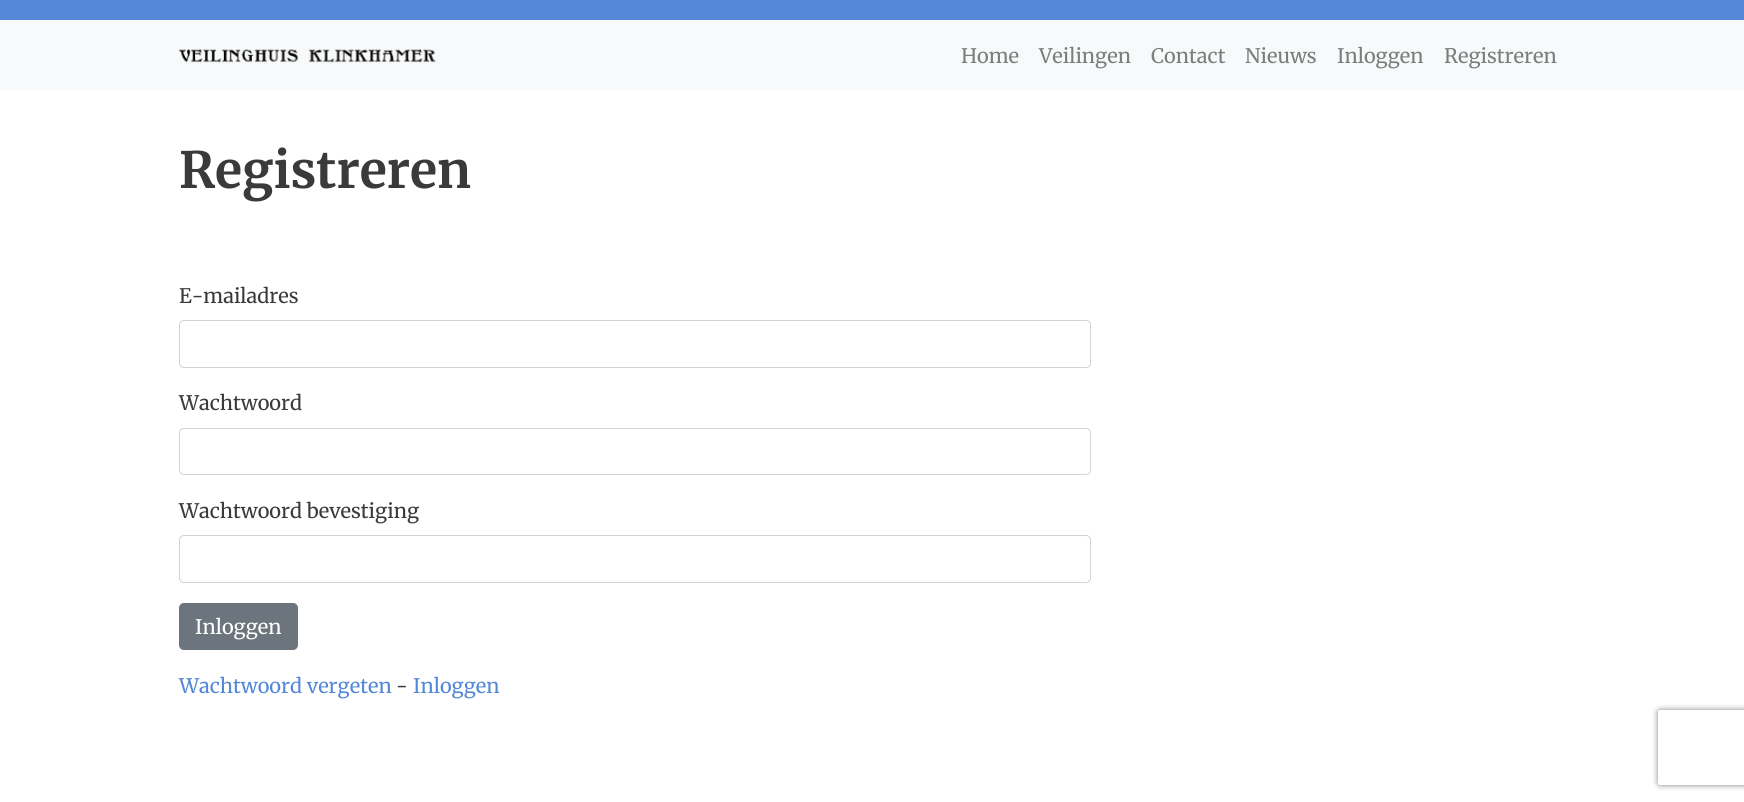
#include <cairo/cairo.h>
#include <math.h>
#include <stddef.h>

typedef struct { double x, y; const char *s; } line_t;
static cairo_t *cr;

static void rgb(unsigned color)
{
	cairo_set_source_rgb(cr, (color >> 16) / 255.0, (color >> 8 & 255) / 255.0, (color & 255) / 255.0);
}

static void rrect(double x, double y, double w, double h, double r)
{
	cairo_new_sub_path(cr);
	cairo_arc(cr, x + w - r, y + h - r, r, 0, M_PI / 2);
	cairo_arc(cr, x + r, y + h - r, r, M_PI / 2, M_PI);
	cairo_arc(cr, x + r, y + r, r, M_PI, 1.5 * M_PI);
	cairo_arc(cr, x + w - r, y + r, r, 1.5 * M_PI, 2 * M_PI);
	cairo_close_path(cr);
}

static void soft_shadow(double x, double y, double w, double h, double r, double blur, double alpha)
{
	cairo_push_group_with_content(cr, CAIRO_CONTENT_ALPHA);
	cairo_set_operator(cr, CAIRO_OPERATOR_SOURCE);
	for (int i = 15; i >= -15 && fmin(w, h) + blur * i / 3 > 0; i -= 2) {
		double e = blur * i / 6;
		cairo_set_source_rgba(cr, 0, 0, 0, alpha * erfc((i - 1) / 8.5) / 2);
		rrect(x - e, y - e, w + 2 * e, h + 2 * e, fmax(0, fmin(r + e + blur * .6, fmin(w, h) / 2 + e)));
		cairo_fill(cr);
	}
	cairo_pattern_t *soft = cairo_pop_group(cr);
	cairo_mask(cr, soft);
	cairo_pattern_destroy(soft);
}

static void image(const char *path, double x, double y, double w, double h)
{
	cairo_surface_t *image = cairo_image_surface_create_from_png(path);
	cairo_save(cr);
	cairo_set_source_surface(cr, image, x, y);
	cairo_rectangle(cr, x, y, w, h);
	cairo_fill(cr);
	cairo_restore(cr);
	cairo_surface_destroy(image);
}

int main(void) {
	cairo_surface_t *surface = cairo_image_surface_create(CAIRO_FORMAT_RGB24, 1744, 802);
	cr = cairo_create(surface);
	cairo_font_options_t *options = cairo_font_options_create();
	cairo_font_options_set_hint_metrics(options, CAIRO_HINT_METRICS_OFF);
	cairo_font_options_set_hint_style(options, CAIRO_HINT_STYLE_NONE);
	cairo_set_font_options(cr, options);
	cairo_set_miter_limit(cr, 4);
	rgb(0xffffff);
	cairo_paint(cr);
	rgb(0x5488d6);
	cairo_rectangle(cr, 0, 0, 1744, 20);
	cairo_fill(cr);
	rgb(0xf8f9fa);
	cairo_rectangle(cr, 0, 20, 1744, 70);
	cairo_fill(cr);
	image("img/1.png", 178, 49, 258, 14);
	rrect(179.5, 320.5, 911, 47, 4.5);
	rgb(0xced4da);
	cairo_set_line_width(cr, 1);
	cairo_stroke(cr);
	rrect(179.5, 428.5, 911, 46, 4.5);
	cairo_stroke(cr);
	rrect(179.5, 535.5, 911, 47, 4.5);
	cairo_stroke(cr);
	rgb(0x6c757d);
	rrect(179.5, 603.5, 118, 46, 4.5);
	cairo_fill_preserve(cr);
	cairo_stroke(cr);
	cairo_save(cr);
	cairo_set_fill_rule(cr, CAIRO_FILL_RULE_EVEN_ODD);
	cairo_new_path(cr);
	cairo_move_to(cr, 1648, 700);
	cairo_line_to(cr, 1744, 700);
	cairo_line_to(cr, 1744, 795);
	cairo_line_to(cr, 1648, 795);
	cairo_close_path(cr);
	cairo_move_to(cr, 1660.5, 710);
	cairo_line_to(cr, 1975.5, 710);
	cairo_curve_to(cr, 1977, 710, 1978, 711, 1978, 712.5);
	cairo_line_to(cr, 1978, 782.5);
	cairo_curve_to(cr, 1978, 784, 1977, 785, 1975.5, 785);
	cairo_line_to(cr, 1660.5, 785);
	cairo_curve_to(cr, 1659, 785, 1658, 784, 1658, 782.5);
	cairo_line_to(cr, 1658, 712.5);
	cairo_curve_to(cr, 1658, 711, 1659, 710, 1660.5, 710);
	cairo_close_path(cr);
	cairo_clip(cr);
	rgb(0x808080);
	soft_shadow(1658, 710, 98, 75, 2.5, 3, 1);
	cairo_restore(cr);
	cairo_select_font_face(cr, "Merriweather", CAIRO_FONT_SLANT_NORMAL, CAIRO_FONT_WEIGHT_NORMAL);
	cairo_set_font_size(cr, 20);
	rgb(0x7c7d7d);
	{
		static const line_t items[] = {
			{961, 63, "Home"},
			{1039, 63, "Veilingen"},
			{1151, 63, "Contact"},
			{1245, 63, "Nieuws"},
			{1337, 63, "Inloggen"},
			{1444, 63, "Registreren"},
		};
		for (size_t i = 0; i < sizeof items / sizeof *items; i++) {
			cairo_move_to(cr, items[i].x, items[i].y);
			cairo_show_text(cr, items[i].s);
		}
	}
	cairo_select_font_face(cr, "Merriweather", CAIRO_FONT_SLANT_NORMAL, CAIRO_FONT_WEIGHT_BOLD);
	cairo_set_font_size(cr, 50);
	rgb(0x3a3a3a);
	cairo_move_to(cr, 179, 188);
	cairo_show_text(cr, "Registreren");
	cairo_select_font_face(cr, "Merriweather", CAIRO_FONT_SLANT_NORMAL, CAIRO_FONT_WEIGHT_NORMAL);
	cairo_set_font_size(cr, 20);
	{
		static const line_t items[] = {
			{179, 303, "E-mailadres"},
			{179, 410, "Wachtwoord"},
			{179, 518, "Wachtwoord bevestiging"},
		};
		for (size_t i = 0; i < sizeof items / sizeof *items; i++) {
			cairo_move_to(cr, items[i].x, items[i].y);
			cairo_show_text(cr, items[i].s);
		}
	}
	rgb(0xffffff);
	cairo_move_to(cr, 195, 634);
	cairo_show_text(cr, "Inloggen");
	rgb(0x5488d6);
	cairo_move_to(cr, 179, 693);
	cairo_show_text(cr, "Wachtwoord vergeten");
	rgb(0x3a3a3a);
	cairo_move_to(cr, 396, 693);
	cairo_show_text(cr, "-");
	rgb(0x5488d6);
	cairo_move_to(cr, 413, 693);
	cairo_show_text(cr, "Inloggen");
	cairo_surface_write_to_png(surface, "page.png");
	cairo_font_options_destroy(options);
	cairo_destroy(cr);
	cairo_surface_destroy(surface);
	return 0;
}
